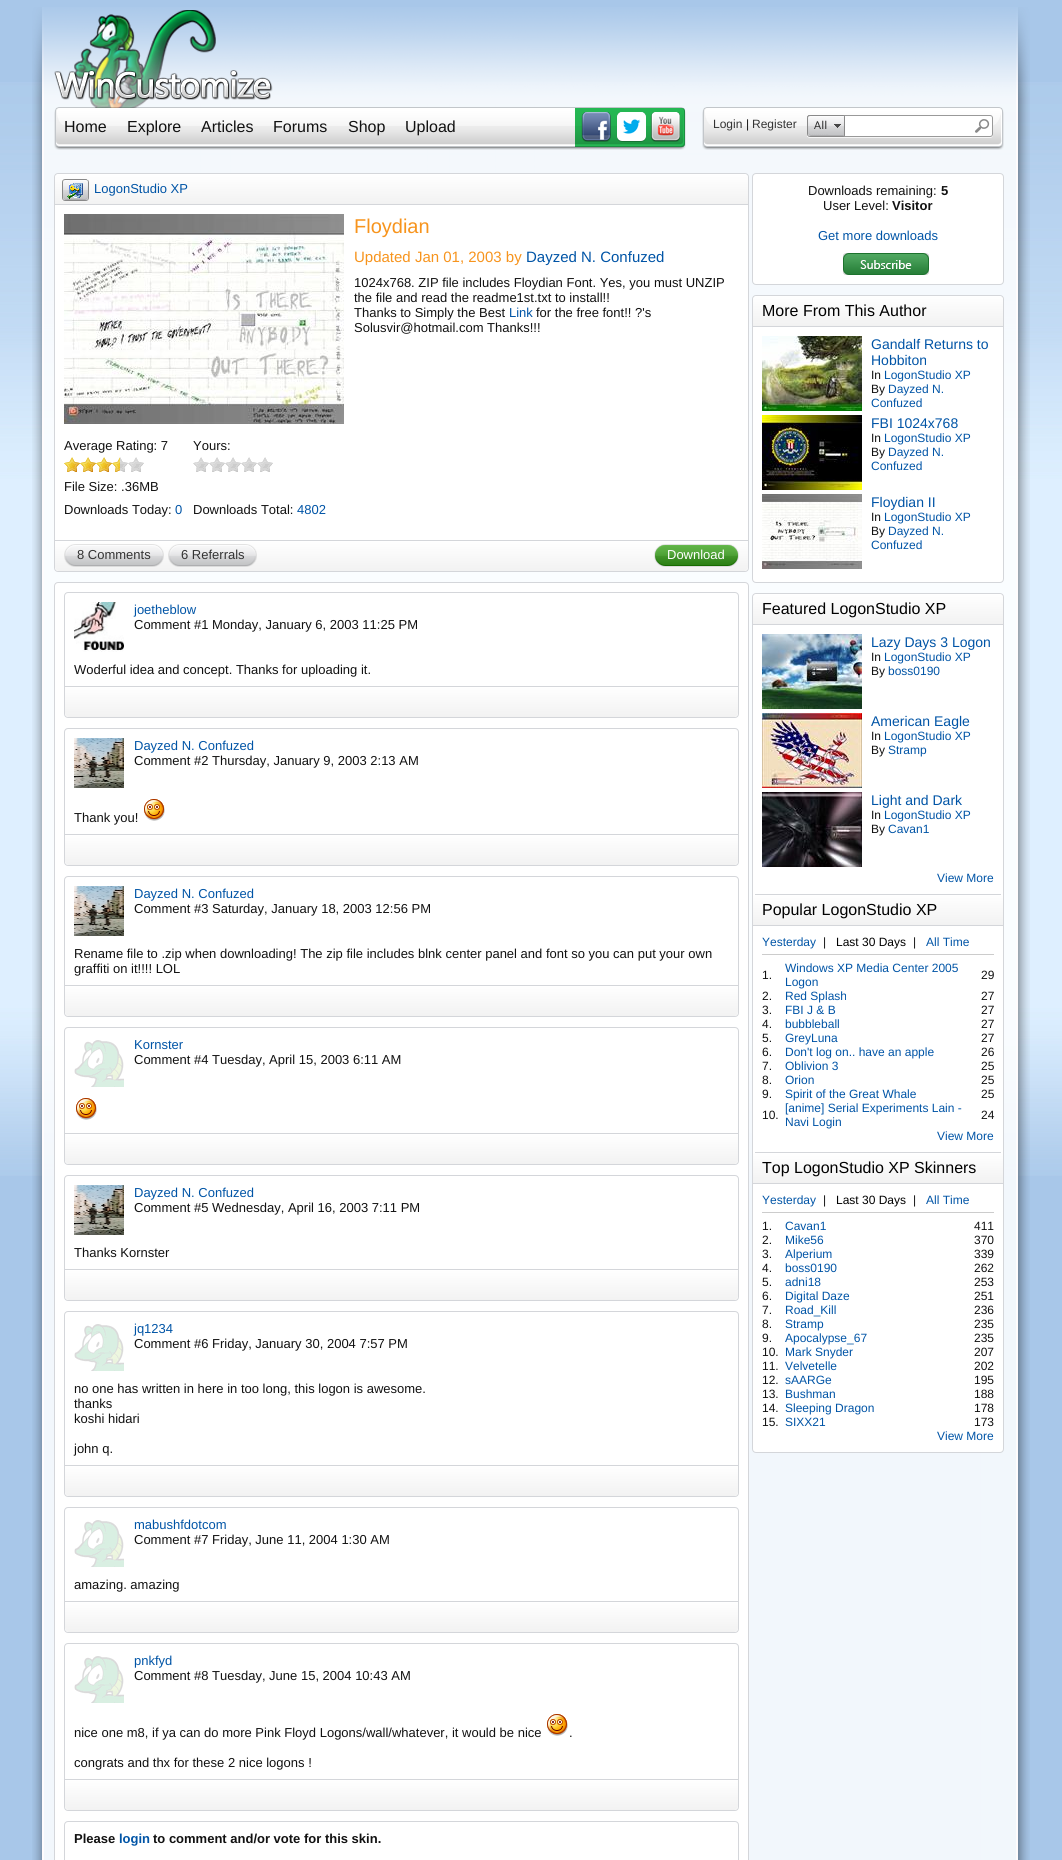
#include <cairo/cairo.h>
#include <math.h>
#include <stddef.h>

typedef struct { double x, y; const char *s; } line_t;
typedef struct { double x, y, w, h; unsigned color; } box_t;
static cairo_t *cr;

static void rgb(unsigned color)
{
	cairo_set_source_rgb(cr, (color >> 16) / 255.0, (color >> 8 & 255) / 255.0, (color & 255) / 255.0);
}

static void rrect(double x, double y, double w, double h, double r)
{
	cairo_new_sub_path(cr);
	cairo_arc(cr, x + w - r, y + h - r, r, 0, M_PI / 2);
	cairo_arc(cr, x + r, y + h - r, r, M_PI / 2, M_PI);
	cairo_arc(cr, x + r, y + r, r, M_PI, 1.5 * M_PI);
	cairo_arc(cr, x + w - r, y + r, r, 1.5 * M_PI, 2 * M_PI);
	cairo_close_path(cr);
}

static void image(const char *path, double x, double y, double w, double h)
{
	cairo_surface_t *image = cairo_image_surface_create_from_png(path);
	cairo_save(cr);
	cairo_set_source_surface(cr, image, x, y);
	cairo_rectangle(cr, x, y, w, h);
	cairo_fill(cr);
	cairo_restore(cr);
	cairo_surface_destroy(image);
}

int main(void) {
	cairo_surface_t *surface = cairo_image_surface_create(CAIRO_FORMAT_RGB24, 1062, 1860);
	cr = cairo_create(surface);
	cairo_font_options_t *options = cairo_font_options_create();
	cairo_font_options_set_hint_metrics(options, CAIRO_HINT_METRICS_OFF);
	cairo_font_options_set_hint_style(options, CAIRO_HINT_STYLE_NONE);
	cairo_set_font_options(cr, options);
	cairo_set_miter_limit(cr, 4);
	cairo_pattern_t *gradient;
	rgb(0xa8c7e9);
	cairo_paint(cr);
	image("img/1.png", 0, 82, 1062, 1094);
	image("img/2.png", 32, 7, 998, 91);
	image("img/3.png", 32, 98, 998, 1762);
	image("img/4.png", 54, 10, 219, 98);
	image("img/5.png", 54, 107, 11, 43);
	image("img/6.png", 65, 107, 510, 43);
	image("img/7.png", 575, 107, 111, 43);
	image("img/8.png", 581, 112, 99, 30);
	image("img/5.png", 702, 107, 11, 43);
	image("img/9.png", 713, 107, 278, 43);
	image("img/10.png", 991, 107, 13, 43);
	image("img/11.png", 807, 115, 186, 23);
	image("img/12.png", 807, 115, 22, 22);
	image("img/13.png", 807, 115, 2, 2);
	image("img/14.png", 814, 115, 20, 22);
	rgb(0xffffff);
	rrect(54.5, 173.5, 694, 398, 3.5);
	cairo_fill_preserve(cr);
	rgb(0xd4d6da);
	cairo_set_line_width(cr, 1);
	cairo_stroke(cr);
	gradient = cairo_pattern_create_linear(402, 174, 402, 204);
	cairo_pattern_add_color_stop_rgba(gradient, 0, 1, 1, 1, 1);
	cairo_pattern_add_color_stop_rgba(gradient, 1, 0.949, 0.949, 0.949, 1);
	cairo_set_source(cr, gradient);
	cairo_pattern_destroy(gradient);
	cairo_new_path(cr);
	cairo_move_to(cr, 59, 174);
	cairo_line_to(cr, 744, 174);
	cairo_curve_to(cr, 746, 174, 748, 176, 748, 178);
	cairo_line_to(cr, 748, 204);
	cairo_line_to(cr, 55, 204);
	cairo_line_to(cr, 55, 178);
	cairo_curve_to(cr, 55, 176, 57, 174, 59, 174);
	cairo_close_path(cr);
	cairo_fill(cr);
	rgb(0xd4d6da);
	cairo_rectangle(cr, 55, 204, 693, 1);
	cairo_fill(cr);
	image("img/15.png", 62, 179, 27, 22);
	image("img/16.png", 64, 214, 280, 210);
	image("img/17.png", 64, 457, 8, 15);
	image("img/18.png", 72, 457, 8, 15);
	image("img/17.png", 80, 457, 8, 15);
	image("img/18.png", 88, 457, 8, 15);
	image("img/17.png", 96, 457, 8, 15);
	image("img/18.png", 104, 457, 8, 15);
	image("img/17.png", 112, 457, 8, 15);
	image("img/19.png", 120, 457, 8, 15);
	image("img/20.png", 128, 457, 8, 15);
	image("img/19.png", 136, 457, 8, 15);
	image("img/20.png", 193, 457, 8, 15);
	image("img/19.png", 201, 457, 8, 15);
	image("img/20.png", 209, 457, 8, 15);
	image("img/19.png", 217, 457, 8, 15);
	image("img/20.png", 225, 457, 8, 15);
	image("img/19.png", 233, 457, 8, 15);
	image("img/20.png", 241, 457, 8, 15);
	image("img/19.png", 249, 457, 8, 15);
	image("img/20.png", 257, 457, 8, 15);
	image("img/19.png", 265, 457, 8, 15);
	gradient = cairo_pattern_create_linear(402, 541, 402, 571);
	cairo_pattern_add_color_stop_rgba(gradient, 0, 1, 1, 1, 1);
	cairo_pattern_add_color_stop_rgba(gradient, 1, 0.949, 0.949, 0.949, 1);
	cairo_set_source(cr, gradient);
	cairo_pattern_destroy(gradient);
	cairo_new_path(cr);
	cairo_move_to(cr, 55, 541);
	cairo_line_to(cr, 748, 541);
	cairo_line_to(cr, 748, 567);
	cairo_curve_to(cr, 748, 569, 746, 571, 744, 571);
	cairo_line_to(cr, 59, 571);
	cairo_curve_to(cr, 57, 571, 55, 569, 55, 567);
	cairo_close_path(cr);
	cairo_fill(cr);
	rgb(0xd4d6da);
	cairo_rectangle(cr, 55, 540, 693, 1);
	cairo_fill(cr);
	image("img/21.png", 64, 544, 13, 23);
	image("img/22.png", 77, 544, 87, 23);
	image("img/21.png", 168, 544, 13, 23);
	image("img/23.png", 181, 544, 76, 23);
	image("img/24.png", 654, 544, 13, 23);
	image("img/25.png", 667, 544, 72, 23);
	rgb(0xffffff);
	rrect(54.5, 582.5, 694, 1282, 3.5);
	cairo_fill_preserve(cr);
	rgb(0xd4d6da);
	cairo_stroke(cr);
	rrect(64.5, 592.5, 674, 125, 3.5);
	cairo_stroke(cr);
	image("img/26.png", 74, 602, 50, 50);
	gradient = cairo_pattern_create_linear(402, 687, 402, 717);
	cairo_pattern_add_color_stop_rgba(gradient, 0, 1, 1, 1, 1);
	cairo_pattern_add_color_stop_rgba(gradient, 1, 0.949, 0.949, 0.949, 1);
	cairo_set_source(cr, gradient);
	cairo_pattern_destroy(gradient);
	cairo_new_path(cr);
	cairo_move_to(cr, 65, 687);
	cairo_line_to(cr, 738, 687);
	cairo_line_to(cr, 738, 713);
	cairo_curve_to(cr, 738, 715, 736, 717, 734, 717);
	cairo_line_to(cr, 69, 717);
	cairo_curve_to(cr, 67, 717, 65, 715, 65, 713);
	cairo_close_path(cr);
	cairo_fill(cr);
	rgb(0xd4d6da);
	cairo_rectangle(cr, 65, 686, 673, 1);
	cairo_fill(cr);
	rrect(64.5, 728.5, 674, 137, 3.5);
	cairo_stroke(cr);
	image("img/27.png", 74, 738, 50, 50);
	image("img/28.png", 144, 799, 21, 22);
	gradient = cairo_pattern_create_linear(402, 835, 402, 865);
	cairo_pattern_add_color_stop_rgba(gradient, 0, 1, 1, 1, 1);
	cairo_pattern_add_color_stop_rgba(gradient, 1, 0.949, 0.949, 0.949, 1);
	cairo_set_source(cr, gradient);
	cairo_pattern_destroy(gradient);
	cairo_new_path(cr);
	cairo_move_to(cr, 65, 835);
	cairo_line_to(cr, 738, 835);
	cairo_line_to(cr, 738, 861);
	cairo_curve_to(cr, 738, 863, 736, 865, 734, 865);
	cairo_line_to(cr, 69, 865);
	cairo_curve_to(cr, 67, 865, 65, 863, 65, 861);
	cairo_close_path(cr);
	cairo_fill(cr);
	rgb(0xd4d6da);
	cairo_rectangle(cr, 65, 834, 673, 1);
	cairo_fill(cr);
	rrect(64.5, 876.5, 674, 140, 3.5);
	cairo_stroke(cr);
	image("img/27.png", 74, 886, 50, 50);
	gradient = cairo_pattern_create_linear(402, 986, 402, 1016);
	cairo_pattern_add_color_stop_rgba(gradient, 0, 1, 1, 1, 1);
	cairo_pattern_add_color_stop_rgba(gradient, 1, 0.949, 0.949, 0.949, 1);
	cairo_set_source(cr, gradient);
	cairo_pattern_destroy(gradient);
	cairo_new_path(cr);
	cairo_move_to(cr, 65, 986);
	cairo_line_to(cr, 738, 986);
	cairo_line_to(cr, 738, 1012);
	cairo_curve_to(cr, 738, 1014, 736, 1016, 734, 1016);
	cairo_line_to(cr, 69, 1016);
	cairo_curve_to(cr, 67, 1016, 65, 1014, 65, 1012);
	cairo_close_path(cr);
	cairo_fill(cr);
	rgb(0xd4d6da);
	cairo_rectangle(cr, 65, 985, 673, 1);
	cairo_fill(cr);
	rrect(64.5, 1027.5, 674, 137, 3.5);
	cairo_stroke(cr);
	image("img/29.png", 74, 1040, 50, 47);
	image("img/28.png", 76, 1098, 21, 22);
	gradient = cairo_pattern_create_linear(402, 1134, 402, 1164);
	cairo_pattern_add_color_stop_rgba(gradient, 0, 1, 1, 1, 1);
	cairo_pattern_add_color_stop_rgba(gradient, 1, 0.949, 0.949, 0.949, 1);
	cairo_set_source(cr, gradient);
	cairo_pattern_destroy(gradient);
	cairo_new_path(cr);
	cairo_move_to(cr, 65, 1134);
	cairo_line_to(cr, 738, 1134);
	cairo_line_to(cr, 738, 1160);
	cairo_curve_to(cr, 738, 1162, 736, 1164, 734, 1164);
	cairo_line_to(cr, 69, 1164);
	cairo_curve_to(cr, 67, 1164, 65, 1162, 65, 1160);
	cairo_close_path(cr);
	cairo_fill(cr);
	rgb(0xd4d6da);
	cairo_rectangle(cr, 65, 1133, 673, 1);
	cairo_fill(cr);
	rrect(64.5, 1175.5, 674, 125, 3.5);
	cairo_stroke(cr);
	image("img/27.png", 74, 1185, 50, 50);
	gradient = cairo_pattern_create_linear(402, 1270, 402, 1300);
	cairo_pattern_add_color_stop_rgba(gradient, 0, 1, 1, 1, 1);
	cairo_pattern_add_color_stop_rgba(gradient, 1, 0.949, 0.949, 0.949, 1);
	cairo_set_source(cr, gradient);
	cairo_pattern_destroy(gradient);
	cairo_new_path(cr);
	cairo_move_to(cr, 65, 1270);
	cairo_line_to(cr, 738, 1270);
	cairo_line_to(cr, 738, 1296);
	cairo_curve_to(cr, 738, 1298, 736, 1300, 734, 1300);
	cairo_line_to(cr, 69, 1300);
	cairo_curve_to(cr, 67, 1300, 65, 1298, 65, 1296);
	cairo_close_path(cr);
	cairo_fill(cr);
	rgb(0xd4d6da);
	cairo_rectangle(cr, 65, 1269, 673, 1);
	cairo_fill(cr);
	rrect(64.5, 1311.5, 674, 185, 3.5);
	cairo_stroke(cr);
	image("img/29.png", 74, 1324, 50, 47);
	gradient = cairo_pattern_create_linear(402, 1466, 402, 1496);
	cairo_pattern_add_color_stop_rgba(gradient, 0, 1, 1, 1, 1);
	cairo_pattern_add_color_stop_rgba(gradient, 1, 0.949, 0.949, 0.949, 1);
	cairo_set_source(cr, gradient);
	cairo_pattern_destroy(gradient);
	cairo_new_path(cr);
	cairo_move_to(cr, 65, 1466);
	cairo_line_to(cr, 738, 1466);
	cairo_line_to(cr, 738, 1492);
	cairo_curve_to(cr, 738, 1494, 736, 1496, 734, 1496);
	cairo_line_to(cr, 69, 1496);
	cairo_curve_to(cr, 67, 1496, 65, 1494, 65, 1492);
	cairo_close_path(cr);
	cairo_fill(cr);
	rgb(0xd4d6da);
	cairo_rectangle(cr, 65, 1465, 673, 1);
	cairo_fill(cr);
	rrect(64.5, 1507.5, 674, 125, 3.5);
	cairo_stroke(cr);
	image("img/29.png", 74, 1520, 50, 47);
	gradient = cairo_pattern_create_linear(402, 1602, 402, 1632);
	cairo_pattern_add_color_stop_rgba(gradient, 0, 1, 1, 1, 1);
	cairo_pattern_add_color_stop_rgba(gradient, 1, 0.949, 0.949, 0.949, 1);
	cairo_set_source(cr, gradient);
	cairo_pattern_destroy(gradient);
	cairo_new_path(cr);
	cairo_move_to(cr, 65, 1602);
	cairo_line_to(cr, 738, 1602);
	cairo_line_to(cr, 738, 1628);
	cairo_curve_to(cr, 738, 1630, 736, 1632, 734, 1632);
	cairo_line_to(cr, 69, 1632);
	cairo_curve_to(cr, 67, 1632, 65, 1630, 65, 1628);
	cairo_close_path(cr);
	cairo_fill(cr);
	rgb(0xd4d6da);
	cairo_rectangle(cr, 65, 1601, 673, 1);
	cairo_fill(cr);
	rrect(64.5, 1643.5, 674, 167, 3.5);
	cairo_stroke(cr);
	image("img/29.png", 74, 1656, 50, 47);
	image("img/28.png", 547, 1714, 21, 22);
	gradient = cairo_pattern_create_linear(402, 1780, 402, 1810);
	cairo_pattern_add_color_stop_rgba(gradient, 0, 1, 1, 1, 1);
	cairo_pattern_add_color_stop_rgba(gradient, 1, 0.949, 0.949, 0.949, 1);
	cairo_set_source(cr, gradient);
	cairo_pattern_destroy(gradient);
	cairo_new_path(cr);
	cairo_move_to(cr, 65, 1780);
	cairo_line_to(cr, 738, 1780);
	cairo_line_to(cr, 738, 1806);
	cairo_curve_to(cr, 738, 1808, 736, 1810, 734, 1810);
	cairo_line_to(cr, 69, 1810);
	cairo_curve_to(cr, 67, 1810, 65, 1808, 65, 1806);
	cairo_close_path(cr);
	cairo_fill(cr);
	rgb(0xd4d6da);
	cairo_rectangle(cr, 65, 1779, 673, 1);
	cairo_fill(cr);
	rrect(64.5, 1821.5, 674, 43, 3.5);
	cairo_stroke(cr);
	rgb(0xffffff);
	rrect(752.5, 173.5, 251, 111, 3.5);
	cairo_fill_preserve(cr);
	rgb(0xd4d6da);
	cairo_stroke(cr);
	image("img/30.png", 843, 253, 86, 22);
	rgb(0xffffff);
	rrect(752.5, 295.5, 251, 287, 3.5);
	cairo_fill_preserve(cr);
	rgb(0xd4d6da);
	cairo_stroke(cr);
	gradient = cairo_pattern_create_linear(878, 296, 878, 326);
	cairo_pattern_add_color_stop_rgba(gradient, 0, 1, 1, 1, 1);
	cairo_pattern_add_color_stop_rgba(gradient, 1, 0.949, 0.949, 0.949, 1);
	cairo_set_source(cr, gradient);
	cairo_pattern_destroy(gradient);
	cairo_new_path(cr);
	cairo_move_to(cr, 757, 296);
	cairo_line_to(cr, 999, 296);
	cairo_curve_to(cr, 1001, 296, 1003, 298, 1003, 300);
	cairo_line_to(cr, 1003, 326);
	cairo_line_to(cr, 753, 326);
	cairo_line_to(cr, 753, 300);
	cairo_curve_to(cr, 753, 298, 755, 296, 757, 296);
	cairo_close_path(cr);
	cairo_fill(cr);
	rgb(0xd4d6da);
	cairo_rectangle(cr, 753, 326, 250, 1);
	cairo_fill(cr);
	image("img/31.png", 762, 336, 100, 75);
	image("img/32.png", 762, 415, 100, 75);
	image("img/33.png", 762, 494, 100, 75);
	rgb(0xffffff);
	rrect(752.5, 593.5, 251, 859, 3.5);
	cairo_fill_preserve(cr);
	rgb(0xd4d6da);
	cairo_stroke(cr);
	gradient = cairo_pattern_create_linear(878, 594, 878, 624);
	cairo_pattern_add_color_stop_rgba(gradient, 0, 1, 1, 1, 1);
	cairo_pattern_add_color_stop_rgba(gradient, 1, 0.949, 0.949, 0.949, 1);
	cairo_set_source(cr, gradient);
	cairo_pattern_destroy(gradient);
	cairo_new_path(cr);
	cairo_move_to(cr, 757, 594);
	cairo_line_to(cr, 999, 594);
	cairo_curve_to(cr, 1001, 594, 1003, 596, 1003, 598);
	cairo_line_to(cr, 1003, 624);
	cairo_line_to(cr, 753, 624);
	cairo_line_to(cr, 753, 598);
	cairo_curve_to(cr, 753, 596, 755, 594, 757, 594);
	cairo_close_path(cr);
	cairo_fill(cr);
	rgb(0xd4d6da);
	cairo_rectangle(cr, 753, 624, 250, 1);
	cairo_fill(cr);
	image("img/34.png", 762, 634, 100, 75);
	image("img/35.png", 762, 713, 100, 75);
	image("img/36.png", 762, 792, 100, 75);
	cairo_save(cr);
	cairo_new_path(cr);
	cairo_move_to(cr, 757, 894);
	cairo_line_to(cr, 999, 894);
	cairo_curve_to(cr, 1001, 894, 1003, 896, 1003, 898);
	cairo_line_to(cr, 1003, 926);
	cairo_line_to(cr, 753, 926);
	cairo_line_to(cr, 753, 898);
	cairo_curve_to(cr, 753, 896, 755, 894, 757, 894);
	cairo_close_path(cr);
	cairo_clip(cr);
	gradient = cairo_pattern_create_linear(878, 895, 878, 925);
	cairo_pattern_add_color_stop_rgba(gradient, 0, 1, 1, 1, 1);
	cairo_pattern_add_color_stop_rgba(gradient, 1, 0.949, 0.949, 0.949, 1);
	cairo_set_source(cr, gradient);
	cairo_pattern_destroy(gradient);
	cairo_rectangle(cr, 753, 895, 250, 30);
	cairo_fill(cr);
	cairo_restore(cr);
	{
		static const box_t items[] = {
			{755, 894, 246, 1, 0xd4d6da},
			{753, 925, 250, 1, 0xd4d6da},
			{762, 954, 232, 1, 0xcccccc},
		};
		for (size_t i = 0; i < sizeof items / sizeof *items; i++) {
			rgb(items[i].color);
			cairo_rectangle(cr, items[i].x, items[i].y, items[i].w, items[i].h);
			cairo_fill(cr);
		}
	}
	cairo_save(cr);
	cairo_new_path(cr);
	cairo_move_to(cr, 757, 1152);
	cairo_line_to(cr, 999, 1152);
	cairo_curve_to(cr, 1001, 1152, 1003, 1154, 1003, 1156);
	cairo_line_to(cr, 1003, 1184);
	cairo_line_to(cr, 753, 1184);
	cairo_line_to(cr, 753, 1156);
	cairo_curve_to(cr, 753, 1154, 755, 1152, 757, 1152);
	cairo_close_path(cr);
	cairo_clip(cr);
	gradient = cairo_pattern_create_linear(878, 1153, 878, 1183);
	cairo_pattern_add_color_stop_rgba(gradient, 0, 1, 1, 1, 1);
	cairo_pattern_add_color_stop_rgba(gradient, 1, 0.949, 0.949, 0.949, 1);
	cairo_set_source(cr, gradient);
	cairo_pattern_destroy(gradient);
	cairo_rectangle(cr, 753, 1153, 250, 30);
	cairo_fill(cr);
	cairo_restore(cr);
	{
		static const box_t items[] = {
			{755, 1152, 246, 1, 0xd4d6da},
			{753, 1183, 250, 1, 0xd4d6da},
			{762, 1212, 232, 1, 0xcccccc},
		};
		for (size_t i = 0; i < sizeof items / sizeof *items; i++) {
			rgb(items[i].color);
			cairo_rectangle(cr, items[i].x, items[i].y, items[i].w, items[i].h);
			cairo_fill(cr);
		}
	}
	cairo_select_font_face(cr, "Liberation Sans", CAIRO_FONT_SLANT_NORMAL, CAIRO_FONT_WEIGHT_NORMAL);
	cairo_set_font_size(cr, 16);
	rgb(0x111111);
	{
		static const line_t items[] = {
			{64, 132, "Home"},
			{127, 132, "Explore"},
			{201, 132, "Articles"},
			{273, 132, "Forums"},
			{348, 132, "Shop"},
			{405, 132, "Upload"},
		};
		for (size_t i = 0; i < sizeof items / sizeof *items; i++) {
			cairo_move_to(cr, items[i].x, items[i].y);
			cairo_show_text(cr, items[i].s);
		}
	}
	cairo_set_font_size(cr, 12);
	rgb(0x333333);
	cairo_move_to(cr, 713, 128);
	cairo_show_text(cr, "Login");
	rgb(0x111111);
	cairo_move_to(cr, 746, 128);
	cairo_show_text(cr, "|");
	rgb(0x333333);
	cairo_move_to(cr, 752, 128);
	cairo_show_text(cr, "Register");
	cairo_set_font_size(cr, 13);
	rgb(0x0054a6);
	cairo_move_to(cr, 94, 193);
	cairo_show_text(cr, "LogonStudio XP");
	cairo_set_font_size(cr, 20);
	rgb(0xf7941d);
	cairo_move_to(cr, 354, 233);
	cairo_show_text(cr, "Floydian");
	cairo_set_font_size(cr, 15);
	cairo_move_to(cr, 354, 262);
	cairo_show_text(cr, "Updated Jan 01, 2003 by");
	rgb(0x0054a6);
	cairo_move_to(cr, 526, 262);
	cairo_show_text(cr, "Dayzed N. Confuzed");
	cairo_set_font_size(cr, 13);
	rgb(0x111111);
	{
		static const line_t items[] = {
			{354, 287, "1024x768. ZIP file includes Floydian Font. Yes, you must UNZIP"},
			{354, 302, "the file and read the readme1st.txt to install!!"},
			{354, 317, "Thanks to Simply the Best"},
		};
		for (size_t i = 0; i < sizeof items / sizeof *items; i++) {
			cairo_move_to(cr, items[i].x, items[i].y);
			cairo_show_text(cr, items[i].s);
		}
	}
	rgb(0x0054a6);
	cairo_move_to(cr, 509, 317);
	cairo_show_text(cr, "Link");
	rgb(0x111111);
	{
		static const line_t items[] = {
			{536, 317, "for the free font!! ?'s"},
			{354, 332, "Solusvir@hotmail.com Thanks!!!"},
			{64, 450, "Average Rating: 7"},
			{193, 450, "Yours:"},
			{64, 491, "File Size: .36MB"},
			{64, 514, "Downloads Today:"},
		};
		for (size_t i = 0; i < sizeof items / sizeof *items; i++) {
			cairo_move_to(cr, items[i].x, items[i].y);
			cairo_show_text(cr, items[i].s);
		}
	}
	rgb(0x0054a6);
	cairo_move_to(cr, 175, 514);
	cairo_show_text(cr, "0");
	rgb(0x111111);
	cairo_move_to(cr, 193, 514);
	cairo_show_text(cr, "Downloads Total:");
	rgb(0x0054a6);
	cairo_move_to(cr, 297, 514);
	cairo_show_text(cr, "4802");
	rgb(0x333333);
	cairo_move_to(cr, 77, 559);
	cairo_show_text(cr, "8 Comments");
	cairo_move_to(cr, 181, 559);
	cairo_show_text(cr, "6 Referrals");
	rgb(0xffffff);
	cairo_move_to(cr, 667, 559);
	cairo_show_text(cr, "Download");
	rgb(0x0054a6);
	cairo_move_to(cr, 134, 614);
	cairo_show_text(cr, "joetheblow");
	rgb(0x111111);
	cairo_move_to(cr, 134, 629);
	cairo_show_text(cr, "Comment #1 Monday, January 6, 2003 11:25 PM");
	cairo_move_to(cr, 74, 674);
	cairo_show_text(cr, "Woderful idea and concept. Thanks for uploading it.");
	rgb(0x0054a6);
	cairo_move_to(cr, 134, 750);
	cairo_show_text(cr, "Dayzed N. Confuzed");
	rgb(0x111111);
	cairo_move_to(cr, 134, 765);
	cairo_show_text(cr, "Comment #2 Thursday, January 9, 2003 2:13 AM");
	cairo_move_to(cr, 74, 822);
	cairo_show_text(cr, "Thank you!");
	rgb(0x0054a6);
	cairo_move_to(cr, 134, 898);
	cairo_show_text(cr, "Dayzed N. Confuzed");
	rgb(0x111111);
	{
		static const line_t items[] = {
			{134, 913, "Comment #3 Saturday, January 18, 2003 12:56 PM"},
			{74, 958, "Rename file to .zip when downloading! The zip file includes blnk center panel and font so you can put your own"},
			{74, 973, "graffiti on it!!!! LOL"},
		};
		for (size_t i = 0; i < sizeof items / sizeof *items; i++) {
			cairo_move_to(cr, items[i].x, items[i].y);
			cairo_show_text(cr, items[i].s);
		}
	}
	rgb(0x0054a6);
	cairo_move_to(cr, 134, 1049);
	cairo_show_text(cr, "Kornster");
	rgb(0x111111);
	cairo_move_to(cr, 134, 1064);
	cairo_show_text(cr, "Comment #4 Tuesday, April 15, 2003 6:11 AM");
	rgb(0x0054a6);
	cairo_move_to(cr, 134, 1197);
	cairo_show_text(cr, "Dayzed N. Confuzed");
	rgb(0x111111);
	cairo_move_to(cr, 134, 1212);
	cairo_show_text(cr, "Comment #5 Wednesday, April 16, 2003 7:11 PM");
	cairo_move_to(cr, 74, 1257);
	cairo_show_text(cr, "Thanks Kornster");
	rgb(0x0054a6);
	cairo_move_to(cr, 134, 1333);
	cairo_show_text(cr, "jq1234");
	rgb(0x111111);
	{
		static const line_t items[] = {
			{134, 1348, "Comment #6 Friday, January 30, 2004 7:57 PM"},
			{74, 1393, "no one has written in here in too long, this logon is awesome."},
			{74, 1408, "thanks"},
			{74, 1423, "koshi hidari"},
			{74, 1453, "john q."},
		};
		for (size_t i = 0; i < sizeof items / sizeof *items; i++) {
			cairo_move_to(cr, items[i].x, items[i].y);
			cairo_show_text(cr, items[i].s);
		}
	}
	rgb(0x0054a6);
	cairo_move_to(cr, 134, 1529);
	cairo_show_text(cr, "mabushfdotcom");
	rgb(0x111111);
	cairo_move_to(cr, 134, 1544);
	cairo_show_text(cr, "Comment #7 Friday, June 11, 2004 1:30 AM");
	cairo_move_to(cr, 74, 1589);
	cairo_show_text(cr, "amazing. amazing");
	rgb(0x0054a6);
	cairo_move_to(cr, 134, 1665);
	cairo_show_text(cr, "pnkfyd");
	rgb(0x111111);
	{
		static const line_t items[] = {
			{134, 1680, "Comment #8 Tuesday, June 15, 2004 10:43 AM"},
			{74, 1737, "nice one m8, if ya can do more Pink Floyd Logons/wall/whatever, it would be nice"},
			{569, 1737, "."},
			{74, 1767, "congrats and thx for these 2 nice logons !"},
		};
		for (size_t i = 0; i < sizeof items / sizeof *items; i++) {
			cairo_move_to(cr, items[i].x, items[i].y);
			cairo_show_text(cr, items[i].s);
		}
	}
	cairo_select_font_face(cr, "Liberation Sans", CAIRO_FONT_SLANT_NORMAL, CAIRO_FONT_WEIGHT_BOLD);
	cairo_move_to(cr, 74, 1843);
	cairo_show_text(cr, "Please");
	rgb(0x0054a6);
	cairo_move_to(cr, 119, 1843);
	cairo_show_text(cr, "login");
	rgb(0x111111);
	cairo_move_to(cr, 153, 1843);
	cairo_show_text(cr, "to comment and/or vote for this skin.");
	cairo_select_font_face(cr, "Liberation Sans", CAIRO_FONT_SLANT_NORMAL, CAIRO_FONT_WEIGHT_NORMAL);
	cairo_move_to(cr, 808, 195);
	cairo_show_text(cr, "Downloads remaining:");
	cairo_select_font_face(cr, "Liberation Sans", CAIRO_FONT_SLANT_NORMAL, CAIRO_FONT_WEIGHT_BOLD);
	cairo_move_to(cr, 941, 195);
	cairo_show_text(cr, "5");
	cairo_select_font_face(cr, "Liberation Sans", CAIRO_FONT_SLANT_NORMAL, CAIRO_FONT_WEIGHT_NORMAL);
	cairo_move_to(cr, 823, 210);
	cairo_show_text(cr, "User Level:");
	cairo_select_font_face(cr, "Liberation Sans", CAIRO_FONT_SLANT_NORMAL, CAIRO_FONT_WEIGHT_BOLD);
	cairo_move_to(cr, 892, 210);
	cairo_show_text(cr, "Visitor");
	cairo_select_font_face(cr, "Liberation Sans", CAIRO_FONT_SLANT_NORMAL, CAIRO_FONT_WEIGHT_NORMAL);
	rgb(0x0054a6);
	cairo_move_to(cr, 818, 240);
	cairo_show_text(cr, "Get more downloads");
	cairo_set_font_size(cr, 16);
	rgb(0x000000);
	cairo_move_to(cr, 762, 316);
	cairo_show_text(cr, "More From This Author");
	cairo_set_font_size(cr, 14);
	rgb(0x0054a6);
	cairo_move_to(cr, 871, 349);
	cairo_show_text(cr, "Gandalf Returns to");
	cairo_move_to(cr, 871, 365);
	cairo_show_text(cr, "Hobbiton");
	cairo_set_font_size(cr, 12);
	rgb(0x111111);
	cairo_move_to(cr, 871, 379);
	cairo_show_text(cr, "In");
	rgb(0x0054a6);
	cairo_move_to(cr, 884, 379);
	cairo_show_text(cr, "LogonStudio XP");
	rgb(0x111111);
	cairo_move_to(cr, 871, 393);
	cairo_show_text(cr, "By");
	rgb(0x0054a6);
	cairo_move_to(cr, 888, 393);
	cairo_show_text(cr, "Dayzed N.");
	cairo_move_to(cr, 871, 407);
	cairo_show_text(cr, "Confuzed");
	cairo_set_font_size(cr, 14);
	cairo_move_to(cr, 871, 428);
	cairo_show_text(cr, "FBI 1024x768");
	cairo_set_font_size(cr, 12);
	rgb(0x111111);
	cairo_move_to(cr, 871, 442);
	cairo_show_text(cr, "In");
	rgb(0x0054a6);
	cairo_move_to(cr, 884, 442);
	cairo_show_text(cr, "LogonStudio XP");
	rgb(0x111111);
	cairo_move_to(cr, 871, 456);
	cairo_show_text(cr, "By");
	rgb(0x0054a6);
	cairo_move_to(cr, 888, 456);
	cairo_show_text(cr, "Dayzed N.");
	cairo_move_to(cr, 871, 470);
	cairo_show_text(cr, "Confuzed");
	cairo_set_font_size(cr, 14);
	cairo_move_to(cr, 871, 507);
	cairo_show_text(cr, "Floydian II");
	cairo_set_font_size(cr, 12);
	rgb(0x111111);
	cairo_move_to(cr, 871, 521);
	cairo_show_text(cr, "In");
	rgb(0x0054a6);
	cairo_move_to(cr, 884, 521);
	cairo_show_text(cr, "LogonStudio XP");
	rgb(0x111111);
	cairo_move_to(cr, 871, 535);
	cairo_show_text(cr, "By");
	rgb(0x0054a6);
	cairo_move_to(cr, 888, 535);
	cairo_show_text(cr, "Dayzed N.");
	cairo_move_to(cr, 871, 549);
	cairo_show_text(cr, "Confuzed");
	cairo_set_font_size(cr, 16);
	rgb(0x000000);
	cairo_move_to(cr, 762, 614);
	cairo_show_text(cr, "Featured LogonStudio XP");
	cairo_set_font_size(cr, 14);
	rgb(0x0054a6);
	cairo_move_to(cr, 871, 647);
	cairo_show_text(cr, "Lazy Days 3 Logon");
	cairo_set_font_size(cr, 12);
	rgb(0x111111);
	cairo_move_to(cr, 871, 661);
	cairo_show_text(cr, "In");
	rgb(0x0054a6);
	cairo_move_to(cr, 884, 661);
	cairo_show_text(cr, "LogonStudio XP");
	rgb(0x111111);
	cairo_move_to(cr, 871, 675);
	cairo_show_text(cr, "By");
	rgb(0x0054a6);
	cairo_move_to(cr, 888, 675);
	cairo_show_text(cr, "boss0190");
	cairo_set_font_size(cr, 14);
	cairo_move_to(cr, 871, 726);
	cairo_show_text(cr, "American Eagle");
	cairo_set_font_size(cr, 12);
	rgb(0x111111);
	cairo_move_to(cr, 871, 740);
	cairo_show_text(cr, "In");
	rgb(0x0054a6);
	cairo_move_to(cr, 884, 740);
	cairo_show_text(cr, "LogonStudio XP");
	rgb(0x111111);
	cairo_move_to(cr, 871, 754);
	cairo_show_text(cr, "By");
	rgb(0x0054a6);
	cairo_move_to(cr, 888, 754);
	cairo_show_text(cr, "Stramp");
	cairo_set_font_size(cr, 14);
	cairo_move_to(cr, 871, 805);
	cairo_show_text(cr, "Light and Dark");
	cairo_set_font_size(cr, 12);
	rgb(0x111111);
	cairo_move_to(cr, 871, 819);
	cairo_show_text(cr, "In");
	rgb(0x0054a6);
	cairo_move_to(cr, 884, 819);
	cairo_show_text(cr, "LogonStudio XP");
	rgb(0x111111);
	cairo_move_to(cr, 871, 833);
	cairo_show_text(cr, "By");
	rgb(0x0054a6);
	cairo_move_to(cr, 888, 833);
	cairo_show_text(cr, "Cavan1");
	cairo_move_to(cr, 937, 882);
	cairo_show_text(cr, "View More");
	cairo_set_font_size(cr, 16);
	rgb(0x000000);
	cairo_move_to(cr, 762, 915);
	cairo_show_text(cr, "Popular LogonStudio XP");
	cairo_set_font_size(cr, 12);
	rgb(0x0054a6);
	cairo_move_to(cr, 762, 946);
	cairo_show_text(cr, "Yesterday");
	rgb(0x111111);
	cairo_move_to(cr, 823, 946);
	cairo_show_text(cr, "|");
	rgb(0x000000);
	cairo_move_to(cr, 836, 946);
	cairo_show_text(cr, "Last 30 Days");
	rgb(0x111111);
	cairo_move_to(cr, 913, 946);
	cairo_show_text(cr, "|");
	rgb(0x0054a6);
	cairo_move_to(cr, 926, 946);
	cairo_show_text(cr, "All Time");
	rgb(0x111111);
	cairo_move_to(cr, 762, 979);
	cairo_show_text(cr, "1.");
	rgb(0x0054a6);
	cairo_move_to(cr, 785, 972);
	cairo_show_text(cr, "Windows XP Media Center 2005");
	cairo_move_to(cr, 785, 986);
	cairo_show_text(cr, "Logon");
	rgb(0x111111);
	cairo_move_to(cr, 981, 979);
	cairo_show_text(cr, "29");
	cairo_move_to(cr, 762, 1000);
	cairo_show_text(cr, "2.");
	rgb(0x0054a6);
	cairo_move_to(cr, 785, 1000);
	cairo_show_text(cr, "Red Splash");
	rgb(0x111111);
	cairo_move_to(cr, 981, 1000);
	cairo_show_text(cr, "27");
	cairo_move_to(cr, 762, 1014);
	cairo_show_text(cr, "3.");
	rgb(0x0054a6);
	cairo_move_to(cr, 785, 1014);
	cairo_show_text(cr, "FBI J & B");
	rgb(0x111111);
	cairo_move_to(cr, 981, 1014);
	cairo_show_text(cr, "27");
	cairo_move_to(cr, 762, 1028);
	cairo_show_text(cr, "4.");
	rgb(0x0054a6);
	cairo_move_to(cr, 785, 1028);
	cairo_show_text(cr, "bubbleball");
	rgb(0x111111);
	cairo_move_to(cr, 981, 1028);
	cairo_show_text(cr, "27");
	cairo_move_to(cr, 762, 1042);
	cairo_show_text(cr, "5.");
	rgb(0x0054a6);
	cairo_move_to(cr, 785, 1042);
	cairo_show_text(cr, "GreyLuna");
	rgb(0x111111);
	cairo_move_to(cr, 981, 1042);
	cairo_show_text(cr, "27");
	cairo_move_to(cr, 762, 1056);
	cairo_show_text(cr, "6.");
	rgb(0x0054a6);
	cairo_move_to(cr, 785, 1056);
	cairo_show_text(cr, "Don't log on.. have an apple");
	rgb(0x111111);
	cairo_move_to(cr, 981, 1056);
	cairo_show_text(cr, "26");
	cairo_move_to(cr, 762, 1070);
	cairo_show_text(cr, "7.");
	rgb(0x0054a6);
	cairo_move_to(cr, 785, 1070);
	cairo_show_text(cr, "Oblivion 3");
	rgb(0x111111);
	cairo_move_to(cr, 981, 1070);
	cairo_show_text(cr, "25");
	cairo_move_to(cr, 762, 1084);
	cairo_show_text(cr, "8.");
	rgb(0x0054a6);
	cairo_move_to(cr, 785, 1084);
	cairo_show_text(cr, "Orion");
	rgb(0x111111);
	cairo_move_to(cr, 981, 1084);
	cairo_show_text(cr, "25");
	cairo_move_to(cr, 762, 1098);
	cairo_show_text(cr, "9.");
	rgb(0x0054a6);
	cairo_move_to(cr, 785, 1098);
	cairo_show_text(cr, "Spirit of the Great Whale");
	rgb(0x111111);
	cairo_move_to(cr, 981, 1098);
	cairo_show_text(cr, "25");
	cairo_move_to(cr, 762, 1119);
	cairo_show_text(cr, "10.");
	rgb(0x0054a6);
	cairo_move_to(cr, 785, 1112);
	cairo_show_text(cr, "[anime] Serial Experiments Lain -");
	cairo_move_to(cr, 785, 1126);
	cairo_show_text(cr, "Navi Login");
	rgb(0x111111);
	cairo_move_to(cr, 981, 1119);
	cairo_show_text(cr, "24");
	rgb(0x0054a6);
	cairo_move_to(cr, 937, 1140);
	cairo_show_text(cr, "View More");
	cairo_set_font_size(cr, 16);
	rgb(0x000000);
	cairo_move_to(cr, 762, 1173);
	cairo_show_text(cr, "Top LogonStudio XP Skinners");
	cairo_set_font_size(cr, 12);
	rgb(0x0054a6);
	cairo_move_to(cr, 762, 1204);
	cairo_show_text(cr, "Yesterday");
	rgb(0x111111);
	cairo_move_to(cr, 823, 1204);
	cairo_show_text(cr, "|");
	rgb(0x000000);
	cairo_move_to(cr, 836, 1204);
	cairo_show_text(cr, "Last 30 Days");
	rgb(0x111111);
	cairo_move_to(cr, 913, 1204);
	cairo_show_text(cr, "|");
	rgb(0x0054a6);
	cairo_move_to(cr, 926, 1204);
	cairo_show_text(cr, "All Time");
	rgb(0x111111);
	cairo_move_to(cr, 762, 1230);
	cairo_show_text(cr, "1.");
	rgb(0x0054a6);
	cairo_move_to(cr, 785, 1230);
	cairo_show_text(cr, "Cavan1");
	rgb(0x111111);
	cairo_move_to(cr, 974, 1230);
	cairo_show_text(cr, "411");
	cairo_move_to(cr, 762, 1244);
	cairo_show_text(cr, "2.");
	rgb(0x0054a6);
	cairo_move_to(cr, 785, 1244);
	cairo_show_text(cr, "Mike56");
	rgb(0x111111);
	cairo_move_to(cr, 974, 1244);
	cairo_show_text(cr, "370");
	cairo_move_to(cr, 762, 1258);
	cairo_show_text(cr, "3.");
	rgb(0x0054a6);
	cairo_move_to(cr, 785, 1258);
	cairo_show_text(cr, "Alperium");
	rgb(0x111111);
	cairo_move_to(cr, 974, 1258);
	cairo_show_text(cr, "339");
	cairo_move_to(cr, 762, 1272);
	cairo_show_text(cr, "4.");
	rgb(0x0054a6);
	cairo_move_to(cr, 785, 1272);
	cairo_show_text(cr, "boss0190");
	rgb(0x111111);
	cairo_move_to(cr, 974, 1272);
	cairo_show_text(cr, "262");
	cairo_move_to(cr, 762, 1286);
	cairo_show_text(cr, "5.");
	rgb(0x0054a6);
	cairo_move_to(cr, 785, 1286);
	cairo_show_text(cr, "adni18");
	rgb(0x111111);
	cairo_move_to(cr, 974, 1286);
	cairo_show_text(cr, "253");
	cairo_move_to(cr, 762, 1300);
	cairo_show_text(cr, "6.");
	rgb(0x0054a6);
	cairo_move_to(cr, 785, 1300);
	cairo_show_text(cr, "Digital Daze");
	rgb(0x111111);
	cairo_move_to(cr, 974, 1300);
	cairo_show_text(cr, "251");
	cairo_move_to(cr, 762, 1314);
	cairo_show_text(cr, "7.");
	rgb(0x0054a6);
	cairo_move_to(cr, 785, 1314);
	cairo_show_text(cr, "Road_Kill");
	rgb(0x111111);
	cairo_move_to(cr, 974, 1314);
	cairo_show_text(cr, "236");
	cairo_move_to(cr, 762, 1328);
	cairo_show_text(cr, "8.");
	rgb(0x0054a6);
	cairo_move_to(cr, 785, 1328);
	cairo_show_text(cr, "Stramp");
	rgb(0x111111);
	cairo_move_to(cr, 974, 1328);
	cairo_show_text(cr, "235");
	cairo_move_to(cr, 762, 1342);
	cairo_show_text(cr, "9.");
	rgb(0x0054a6);
	cairo_move_to(cr, 785, 1342);
	cairo_show_text(cr, "Apocalypse_67");
	rgb(0x111111);
	cairo_move_to(cr, 974, 1342);
	cairo_show_text(cr, "235");
	cairo_move_to(cr, 762, 1356);
	cairo_show_text(cr, "10.");
	rgb(0x0054a6);
	cairo_move_to(cr, 785, 1356);
	cairo_show_text(cr, "Mark Snyder");
	rgb(0x111111);
	cairo_move_to(cr, 974, 1356);
	cairo_show_text(cr, "207");
	cairo_move_to(cr, 762, 1370);
	cairo_show_text(cr, "11.");
	rgb(0x0054a6);
	cairo_move_to(cr, 785, 1370);
	cairo_show_text(cr, "Velvetelle");
	rgb(0x111111);
	cairo_move_to(cr, 974, 1370);
	cairo_show_text(cr, "202");
	cairo_move_to(cr, 762, 1384);
	cairo_show_text(cr, "12.");
	rgb(0x0054a6);
	cairo_move_to(cr, 785, 1384);
	cairo_show_text(cr, "sAARGe");
	rgb(0x111111);
	cairo_move_to(cr, 974, 1384);
	cairo_show_text(cr, "195");
	cairo_move_to(cr, 762, 1398);
	cairo_show_text(cr, "13.");
	rgb(0x0054a6);
	cairo_move_to(cr, 785, 1398);
	cairo_show_text(cr, "Bushman");
	rgb(0x111111);
	cairo_move_to(cr, 974, 1398);
	cairo_show_text(cr, "188");
	cairo_move_to(cr, 762, 1412);
	cairo_show_text(cr, "14.");
	rgb(0x0054a6);
	cairo_move_to(cr, 785, 1412);
	cairo_show_text(cr, "Sleeping Dragon");
	rgb(0x111111);
	cairo_move_to(cr, 974, 1412);
	cairo_show_text(cr, "178");
	cairo_move_to(cr, 762, 1426);
	cairo_show_text(cr, "15.");
	rgb(0x0054a6);
	cairo_move_to(cr, 785, 1426);
	cairo_show_text(cr, "SIXX21");
	rgb(0x111111);
	cairo_move_to(cr, 974, 1426);
	cairo_show_text(cr, "173");
	rgb(0x0054a6);
	cairo_move_to(cr, 937, 1440);
	cairo_show_text(cr, "View More");
	cairo_surface_write_to_png(surface, "page.png");
	cairo_font_options_destroy(options);
	cairo_destroy(cr);
	cairo_surface_destroy(surface);
	return 0;
}
